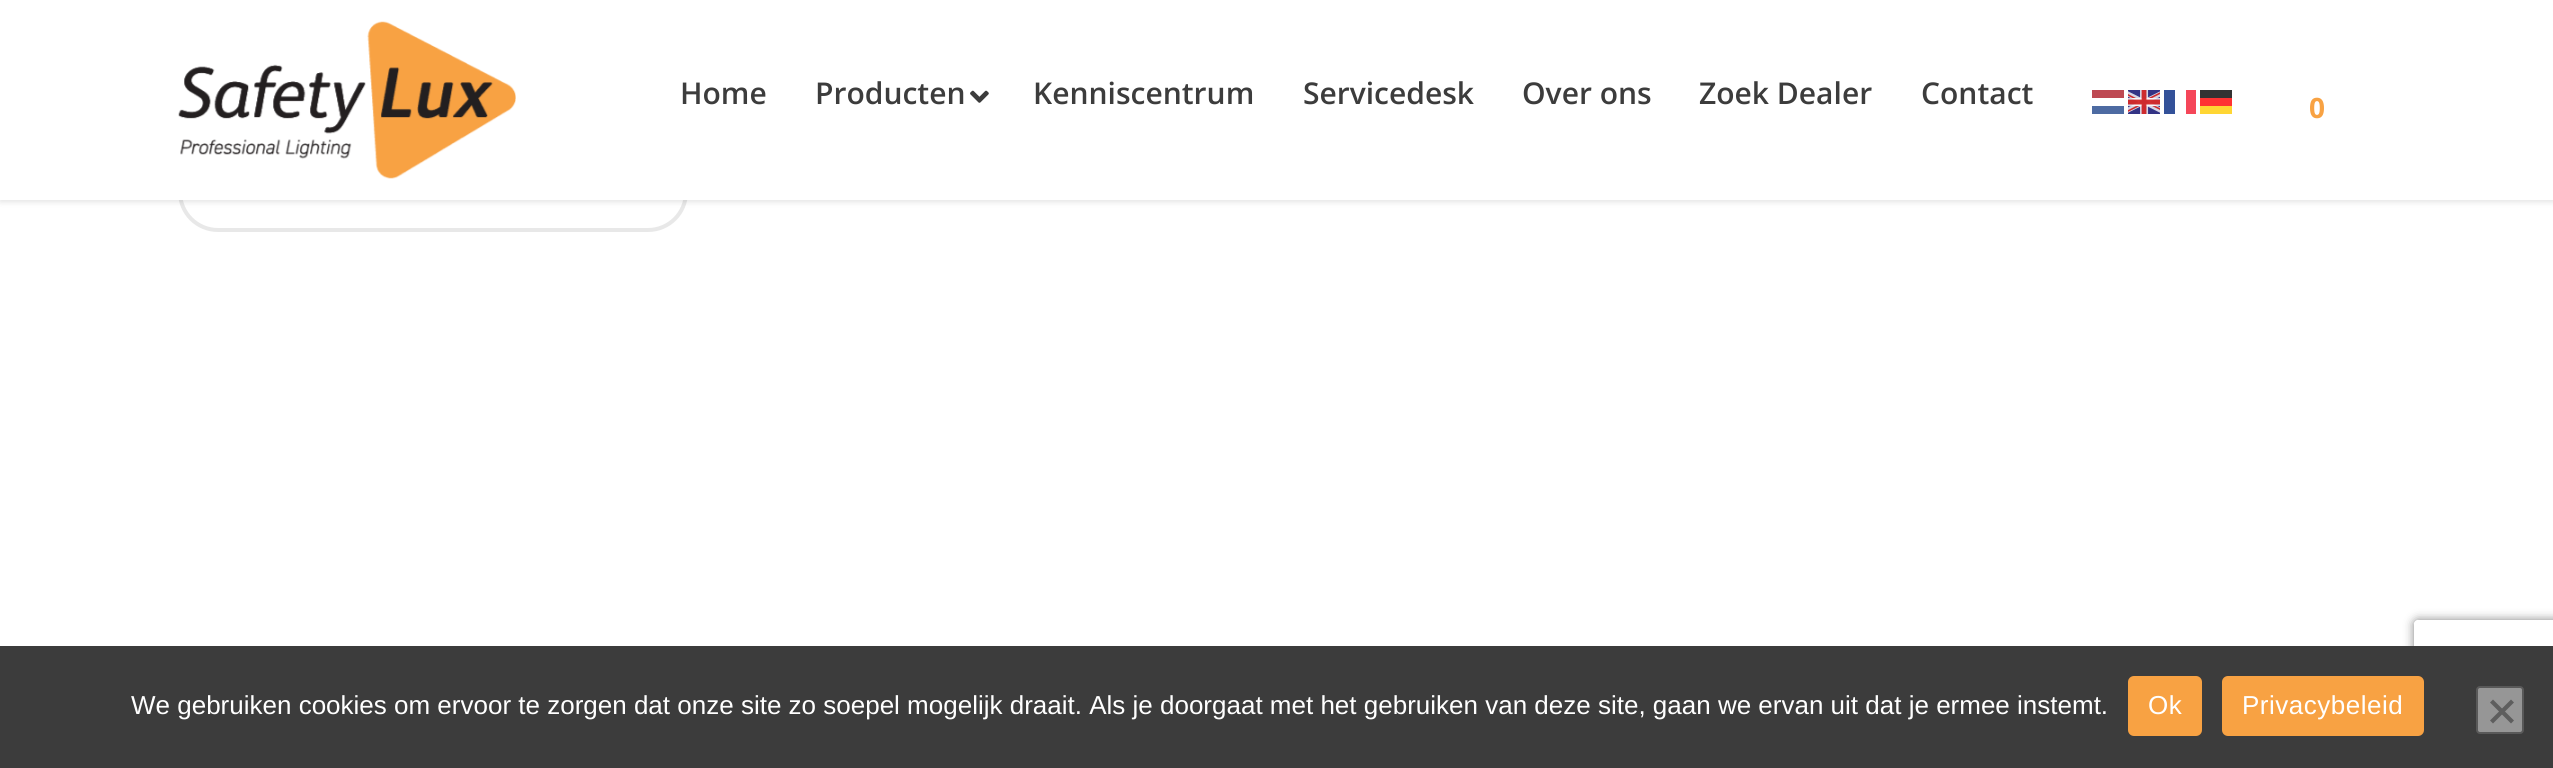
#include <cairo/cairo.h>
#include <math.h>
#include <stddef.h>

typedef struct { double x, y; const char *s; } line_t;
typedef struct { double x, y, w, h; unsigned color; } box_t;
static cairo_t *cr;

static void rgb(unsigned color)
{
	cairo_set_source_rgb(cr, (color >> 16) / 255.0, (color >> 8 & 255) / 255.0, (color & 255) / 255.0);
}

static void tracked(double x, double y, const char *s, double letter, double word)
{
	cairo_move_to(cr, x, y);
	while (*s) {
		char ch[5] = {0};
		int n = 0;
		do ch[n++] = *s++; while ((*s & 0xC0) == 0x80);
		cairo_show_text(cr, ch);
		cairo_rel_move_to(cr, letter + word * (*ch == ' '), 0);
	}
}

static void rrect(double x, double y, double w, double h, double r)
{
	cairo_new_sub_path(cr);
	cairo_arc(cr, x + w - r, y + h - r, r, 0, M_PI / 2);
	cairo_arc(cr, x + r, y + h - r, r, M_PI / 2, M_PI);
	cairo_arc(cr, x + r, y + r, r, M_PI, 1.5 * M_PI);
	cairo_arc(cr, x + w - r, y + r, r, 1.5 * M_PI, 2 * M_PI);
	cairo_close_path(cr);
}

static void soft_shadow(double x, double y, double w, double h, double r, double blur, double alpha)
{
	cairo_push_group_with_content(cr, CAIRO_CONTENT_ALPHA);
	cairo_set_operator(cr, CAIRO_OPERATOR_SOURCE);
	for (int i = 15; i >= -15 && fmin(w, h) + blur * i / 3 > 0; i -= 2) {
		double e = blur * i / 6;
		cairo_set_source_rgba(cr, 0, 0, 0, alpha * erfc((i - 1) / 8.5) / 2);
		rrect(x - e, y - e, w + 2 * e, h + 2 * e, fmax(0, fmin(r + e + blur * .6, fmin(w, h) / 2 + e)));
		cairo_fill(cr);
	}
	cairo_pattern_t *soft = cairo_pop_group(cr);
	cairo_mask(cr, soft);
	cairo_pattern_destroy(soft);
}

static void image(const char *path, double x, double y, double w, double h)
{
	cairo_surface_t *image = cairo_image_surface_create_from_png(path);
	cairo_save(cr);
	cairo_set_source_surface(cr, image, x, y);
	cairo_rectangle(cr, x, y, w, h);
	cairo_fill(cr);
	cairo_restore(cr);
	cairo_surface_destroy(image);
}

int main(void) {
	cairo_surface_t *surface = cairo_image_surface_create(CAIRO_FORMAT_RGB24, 2553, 768);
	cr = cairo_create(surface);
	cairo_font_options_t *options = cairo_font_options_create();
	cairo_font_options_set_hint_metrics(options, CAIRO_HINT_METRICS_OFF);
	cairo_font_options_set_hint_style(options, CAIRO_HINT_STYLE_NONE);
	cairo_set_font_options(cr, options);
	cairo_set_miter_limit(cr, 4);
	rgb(0xffffff);
	cairo_paint(cr);
	rrect(180, 154, 506, 76, 38);
	rgb(0xe8e8e8);
	cairo_set_line_width(cr, 4);
	cairo_stroke(cr);
	rgb(0x000000);
	soft_shadow(0, 2, 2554, 200, 0, 3, 0.11);
	rgb(0xffffff);
	cairo_rectangle(cr, 0, 0, 2553, 200);
	cairo_fill(cr);
	image("img/1.png", 178, 21, 338, 158);
	image("img/2.png", 970, 90, 19, 13);
	rgb(0xbe4953);
	cairo_rectangle(cr, 2092, 90, 32, 8);
	cairo_fill(cr);
	image("img/3.png", 2128, 90, 32, 24);
	{
		static const box_t items[] = {
			{2164, 90, 11, 24, 0x335199},
			{2186, 90, 10, 24, 0xf54659},
			{2200, 90, 32, 8, 0x333333},
			{2200, 98, 32, 8, 0xff3333},
			{2092, 106, 32, 8, 0x4d6ba2},
			{2200, 106, 32, 8, 0xffd633},
		};
		for (size_t i = 0; i < sizeof items / sizeof *items; i++) {
			rgb(items[i].color);
			cairo_rectangle(cr, items[i].x, items[i].y, items[i].w, items[i].h);
			cairo_fill(cr);
		}
	}
	cairo_save(cr);
	cairo_set_fill_rule(cr, CAIRO_FILL_RULE_EVEN_ODD);
	cairo_new_path(cr);
	cairo_move_to(cr, 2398, 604);
	cairo_line_to(cr, 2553, 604);
	cairo_line_to(cr, 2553, 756);
	cairo_line_to(cr, 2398, 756);
	cairo_close_path(cr);
	cairo_move_to(cr, 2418, 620);
	cairo_line_to(cr, 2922, 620);
	cairo_curve_to(cr, 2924, 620, 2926, 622, 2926, 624);
	cairo_line_to(cr, 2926, 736);
	cairo_curve_to(cr, 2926, 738, 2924, 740, 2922, 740);
	cairo_line_to(cr, 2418, 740);
	cairo_curve_to(cr, 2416, 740, 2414, 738, 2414, 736);
	cairo_line_to(cr, 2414, 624);
	cairo_curve_to(cr, 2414, 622, 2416, 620, 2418, 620);
	cairo_close_path(cr);
	cairo_clip(cr);
	rgb(0x808080);
	soft_shadow(2414, 620, 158, 120, 4, 5, 1);
	cairo_restore(cr);
	rgb(0x3c3c3c);
	cairo_rectangle(cr, 0, 646, 2553, 122);
	cairo_fill(cr);
	rgb(0xf8a243);
	rrect(2128, 676, 74, 60, 6);
	cairo_fill(cr);
	rrect(2222, 676, 202, 60, 6);
	cairo_fill(cr);
	rgb(0x969696);
	rrect(2477, 687, 46, 46, 3);
	cairo_fill_preserve(cr);
	rgb(0x595959);
	cairo_set_line_width(cr, 2);
	cairo_stroke(cr);
	rgb(0x5e5e5e);
	cairo_new_path(cr);
	cairo_move_to(cr, 2511, 699.5);
	cairo_line_to(cr, 2514, 702.5);
	cairo_line_to(cr, 2493, 723.5);
	cairo_line_to(cr, 2490, 720.5);
	cairo_close_path(cr);
	cairo_fill(cr);
	cairo_new_path(cr);
	cairo_move_to(cr, 2490, 702.5);
	cairo_line_to(cr, 2493, 699.5);
	cairo_line_to(cr, 2514, 720.5);
	cairo_line_to(cr, 2511, 723.5);
	cairo_close_path(cr);
	cairo_fill(cr);
	cairo_select_font_face(cr, "Open Sans SemiBold", CAIRO_FONT_SLANT_NORMAL, CAIRO_FONT_WEIGHT_NORMAL);
	cairo_set_font_size(cr, 30);
	rgb(0x3c3c3c);
	{
		static const line_t items[] = {
			{680, 104, "Home"},
			{815, 104, "Producten"},
			{1033, 104, "Kenniscentrum"},
			{1303, 104, "Servicedesk"},
			{1522, 104, "Over ons"},
			{1699, 104, "Zoek Dealer"},
			{1921, 104, "Contact"},
		};
		for (size_t i = 0; i < sizeof items / sizeof *items; i++) {
			cairo_move_to(cr, items[i].x, items[i].y);
			cairo_show_text(cr, items[i].s);
		}
	}
	cairo_select_font_face(cr, "Open Sans", CAIRO_FONT_SLANT_NORMAL, CAIRO_FONT_WEIGHT_BOLD);
	cairo_set_font_size(cr, 28);
	rgb(0xf8a243);
	cairo_move_to(cr, 2309, 118);
	cairo_show_text(cr, "0");
	cairo_select_font_face(cr, "Liberation Sans", CAIRO_FONT_SLANT_NORMAL, CAIRO_FONT_WEIGHT_NORMAL);
	cairo_set_font_size(cr, 26);
	rgb(0xffffff);
	cairo_move_to(cr, 131, 714);
	cairo_show_text(cr, "We gebruiken cookies om ervoor te zorgen dat onze site zo soepel mogelijk draait. Als je doorgaat met het gebruiken van deze site, gaan we ervan uit dat je ermee instemt.");
	tracked(2148, 714, "Ok", 0.5, 0);
	tracked(2242, 714, "Privacybeleid", 0.5, 0);
	cairo_surface_write_to_png(surface, "page.png");
	cairo_font_options_destroy(options);
	cairo_destroy(cr);
	cairo_surface_destroy(surface);
	return 0;
}
